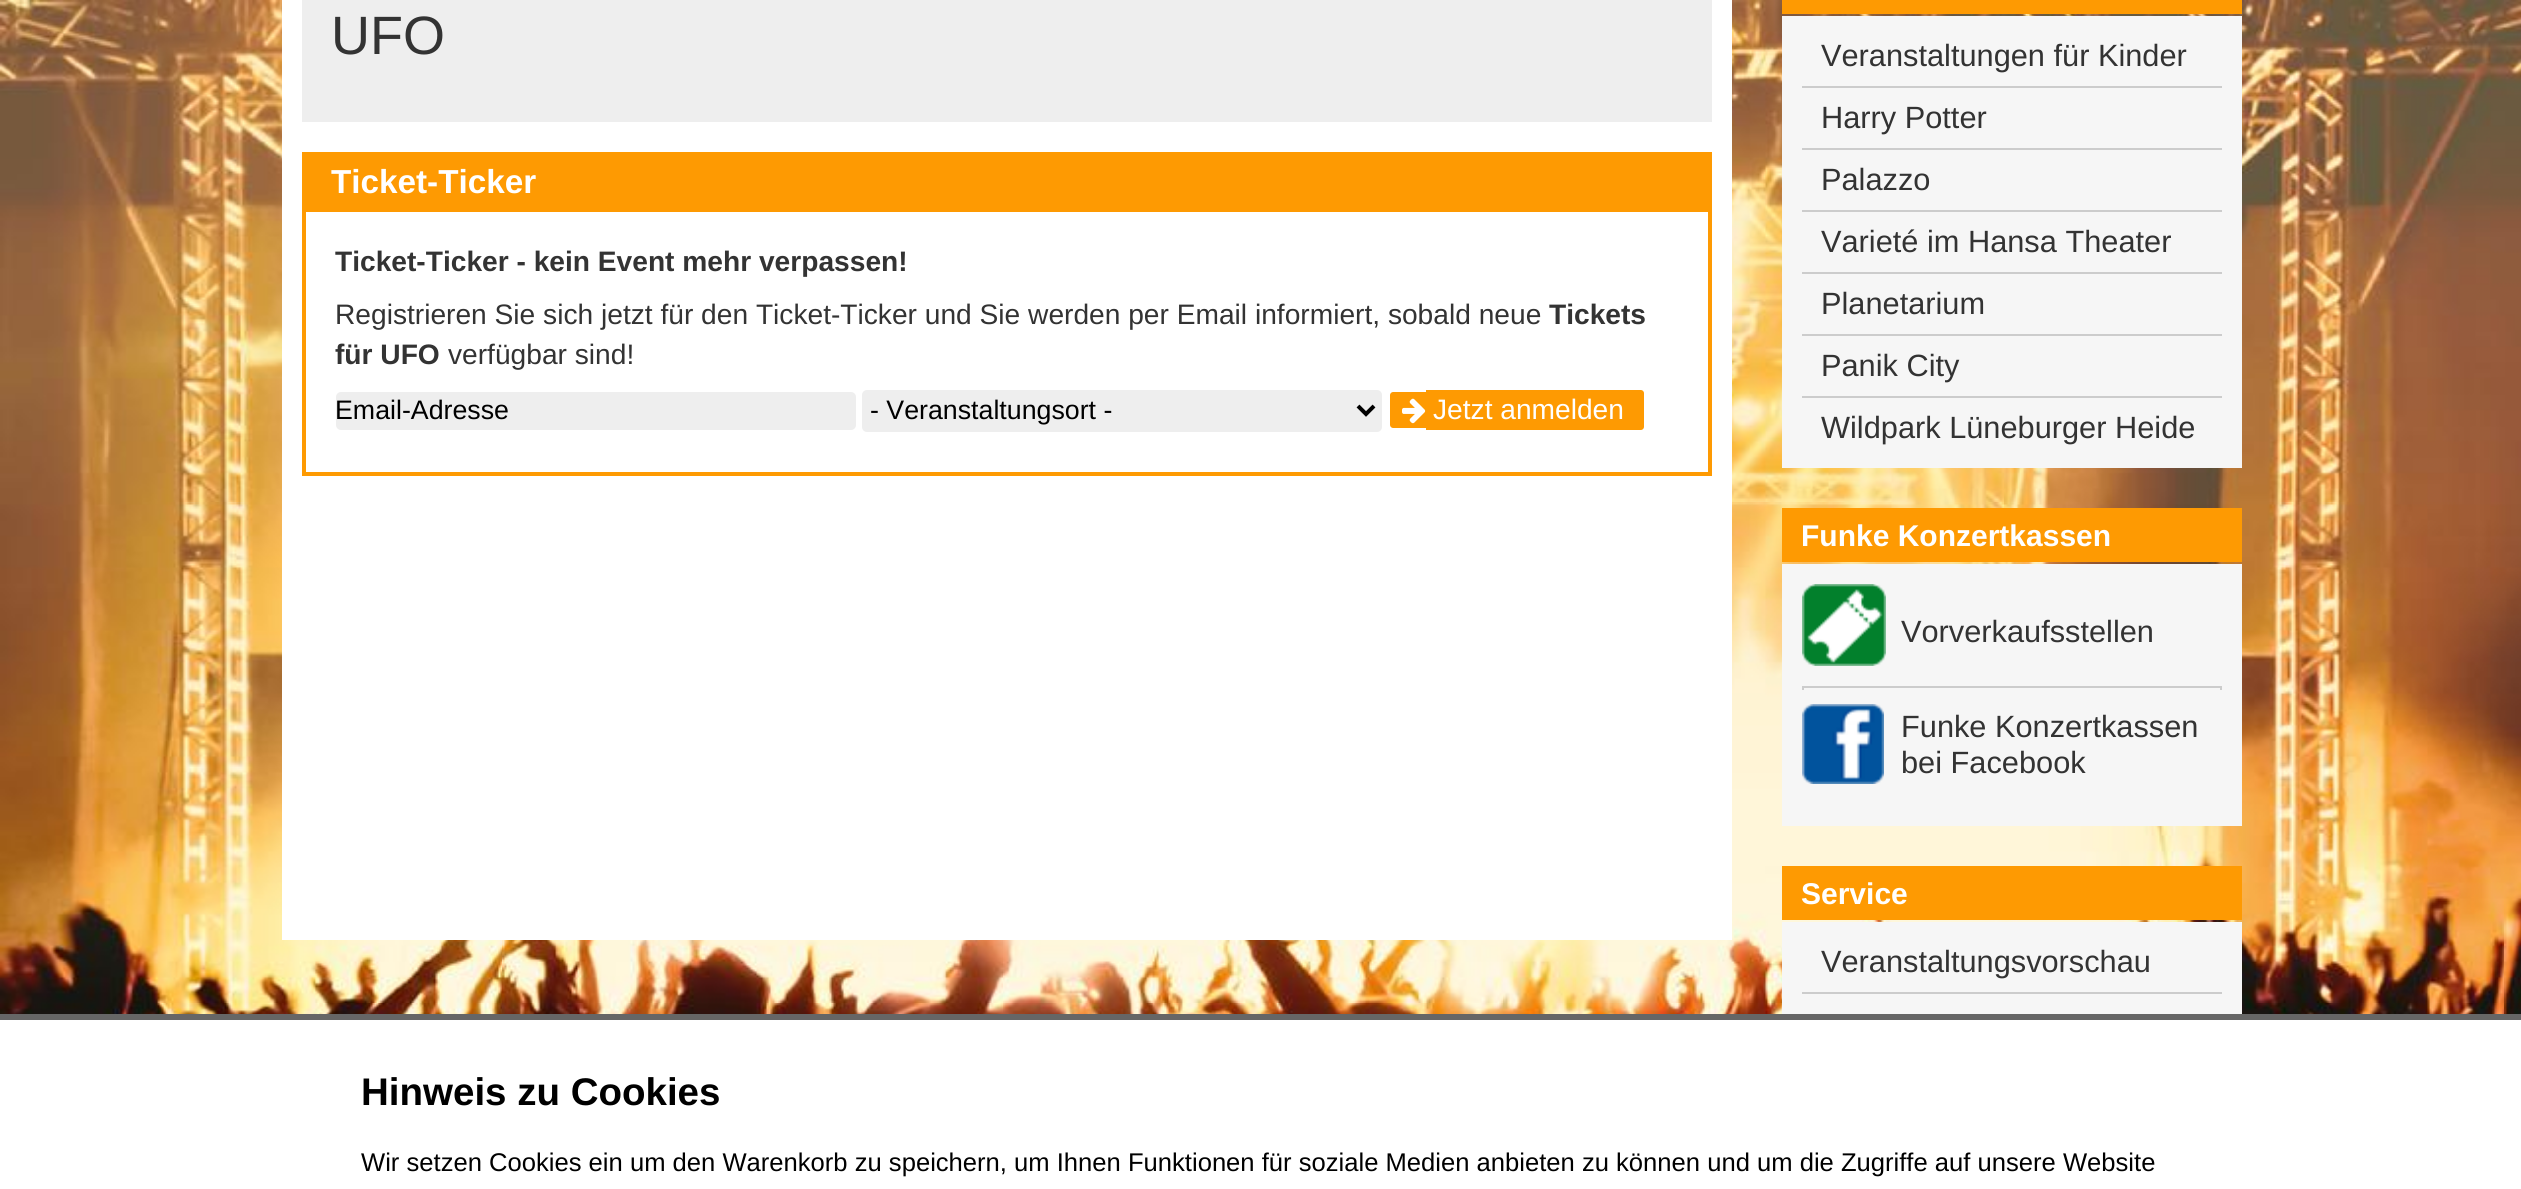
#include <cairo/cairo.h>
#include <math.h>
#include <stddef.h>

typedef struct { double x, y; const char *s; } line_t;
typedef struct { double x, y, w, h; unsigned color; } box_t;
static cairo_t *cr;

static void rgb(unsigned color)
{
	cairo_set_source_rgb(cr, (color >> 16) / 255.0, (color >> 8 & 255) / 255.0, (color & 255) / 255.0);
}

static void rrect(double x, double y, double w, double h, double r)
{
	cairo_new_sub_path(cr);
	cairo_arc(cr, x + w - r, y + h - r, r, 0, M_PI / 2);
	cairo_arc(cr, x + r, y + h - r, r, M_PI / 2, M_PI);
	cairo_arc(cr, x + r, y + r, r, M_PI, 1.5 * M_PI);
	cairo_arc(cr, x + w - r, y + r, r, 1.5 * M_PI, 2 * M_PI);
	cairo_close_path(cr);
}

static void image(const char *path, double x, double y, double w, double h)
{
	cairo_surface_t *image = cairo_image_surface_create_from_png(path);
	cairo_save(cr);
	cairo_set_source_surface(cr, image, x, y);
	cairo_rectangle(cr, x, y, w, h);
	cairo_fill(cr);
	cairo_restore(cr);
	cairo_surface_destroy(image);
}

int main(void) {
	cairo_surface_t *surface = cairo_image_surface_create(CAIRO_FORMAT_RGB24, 2521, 1189);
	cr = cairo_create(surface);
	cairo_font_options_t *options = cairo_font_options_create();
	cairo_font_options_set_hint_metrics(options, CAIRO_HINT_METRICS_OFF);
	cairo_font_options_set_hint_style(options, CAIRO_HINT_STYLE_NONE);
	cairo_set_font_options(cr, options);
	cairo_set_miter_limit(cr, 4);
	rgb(0xffffff);
	cairo_paint(cr);
	image("img/1.png", 0, 0, 2521, 1014);
	{
		static const box_t items[] = {
			{282, 0, 1450, 940, 0xffffff},
			{302, 0, 1410, 122, 0xeeeeee},
			{302, 152, 1410, 60, 0xfe9a02},
			{1708, 212, 4, 264, 0xfe9a02},
			{302, 472, 1410, 4, 0xfe9a02},
			{302, 212, 4, 264, 0xfe9a02},
		};
		for (size_t i = 0; i < sizeof items / sizeof *items; i++) {
			rgb(items[i].color);
			cairo_rectangle(cr, items[i].x, items[i].y, items[i].w, items[i].h);
			cairo_fill(cr);
		}
	}
	rgb(0xeeeeee);
	rrect(336, 392, 520, 38, 5);
	cairo_fill(cr);
	rrect(862, 390, 520, 42, 5);
	cairo_fill(cr);
	cairo_new_path(cr);
	cairo_move_to(cr, 1358, 406);
	cairo_line_to(cr, 1366, 414);
	cairo_line_to(cr, 1374, 406);
	rgb(0x000000);
	cairo_set_line_width(cr, 4);
	cairo_stroke(cr);
	rgb(0xfe9a02);
	cairo_new_path(cr);
	cairo_move_to(cr, 1393, 392);
	cairo_line_to(cr, 1426, 392);
	cairo_line_to(cr, 1426, 428);
	cairo_line_to(cr, 1393, 428);
	cairo_curve_to(cr, 1391.5, 428, 1390, 426.5, 1390, 425);
	cairo_line_to(cr, 1390, 395);
	cairo_curve_to(cr, 1390, 393.5, 1391.5, 392, 1393, 392);
	cairo_close_path(cr);
	cairo_fill(cr);
	cairo_new_path(cr);
	cairo_move_to(cr, 1426, 390);
	cairo_line_to(cr, 1641, 390);
	cairo_curve_to(cr, 1642.5, 390, 1644, 391.5, 1644, 393);
	cairo_line_to(cr, 1644, 427);
	cairo_curve_to(cr, 1644, 428.5, 1642.5, 430, 1641, 430);
	cairo_line_to(cr, 1426, 430);
	cairo_close_path(cr);
	cairo_fill(cr);
	image("img/2.png", 1402, 398, 24, 26);
	{
		static const box_t items[] = {
			{1782, 0, 460, 14, 0xfe9a02},
			{1782, 16, 460, 452, 0xf6f6f6},
			{1802, 86, 420, 2, 0xcccccc},
			{1802, 148, 420, 2, 0xcccccc},
			{1802, 210, 420, 2, 0xcccccc},
			{1802, 272, 420, 2, 0xcccccc},
			{1802, 334, 420, 2, 0xcccccc},
			{1802, 396, 420, 2, 0xcccccc},
			{1782, 508, 460, 54, 0xfe9a02},
			{1782, 564, 460, 262, 0xf6f6f6},
		};
		for (size_t i = 0; i < sizeof items / sizeof *items; i++) {
			rgb(items[i].color);
			cairo_rectangle(cr, items[i].x, items[i].y, items[i].w, items[i].h);
			cairo_fill(cr);
		}
	}
	image("img/3.png", 1802, 584, 84, 82);
	{
		static const box_t items[] = {
			{1802, 686, 420, 2, 0xcccccc},
			{2220, 686, 2, 4, 0xcccccc},
			{1802, 686, 2, 4, 0xcccccc},
		};
		for (size_t i = 0; i < sizeof items / sizeof *items; i++) {
			rgb(items[i].color);
			cairo_rectangle(cr, items[i].x, items[i].y, items[i].w, items[i].h);
			cairo_fill(cr);
		}
	}
	image("img/4.png", 1802, 704, 82, 80);
	{
		static const box_t items[] = {
			{1782, 866, 460, 54, 0xfe9a02},
			{1782, 922, 460, 92, 0xf6f6f6},
			{1802, 992, 420, 2, 0xcccccc},
			{0, 1014, 2521, 6, 0x666666},
		};
		for (size_t i = 0; i < sizeof items / sizeof *items; i++) {
			rgb(items[i].color);
			cairo_rectangle(cr, items[i].x, items[i].y, items[i].w, items[i].h);
			cairo_fill(cr);
		}
	}
	cairo_select_font_face(cr, "Liberation Sans", CAIRO_FONT_SLANT_NORMAL, CAIRO_FONT_WEIGHT_NORMAL);
	cairo_set_font_size(cr, 54);
	rgb(0x333333);
	cairo_move_to(cr, 331, 54);
	cairo_show_text(cr, "UFO");
	cairo_select_font_face(cr, "Liberation Sans", CAIRO_FONT_SLANT_NORMAL, CAIRO_FONT_WEIGHT_BOLD);
	cairo_set_font_size(cr, 33.25);
	rgb(0xffffff);
	cairo_move_to(cr, 331, 193);
	cairo_show_text(cr, "Ticket-Ticker");
	cairo_set_font_size(cr, 28.15);
	rgb(0x333333);
	cairo_move_to(cr, 335, 271);
	cairo_show_text(cr, "Ticket-Ticker - kein Event mehr verpassen!");
	cairo_select_font_face(cr, "Liberation Sans", CAIRO_FONT_SLANT_NORMAL, CAIRO_FONT_WEIGHT_NORMAL);
	cairo_move_to(cr, 335, 324);
	cairo_show_text(cr, "Registrieren Sie sich jetzt für den Ticket-Ticker und Sie werden per Email informiert, sobald neue");
	cairo_select_font_face(cr, "Liberation Sans", CAIRO_FONT_SLANT_NORMAL, CAIRO_FONT_WEIGHT_BOLD);
	cairo_move_to(cr, 1549, 324);
	cairo_show_text(cr, "Tickets");
	cairo_move_to(cr, 335, 364);
	cairo_show_text(cr, "für UFO");
	cairo_select_font_face(cr, "Liberation Sans", CAIRO_FONT_SLANT_NORMAL, CAIRO_FONT_WEIGHT_NORMAL);
	cairo_move_to(cr, 448, 364);
	cairo_show_text(cr, "verfügbar sind!");
	cairo_set_font_size(cr, 26.75);
	rgb(0x000000);
	cairo_move_to(cr, 335, 419);
	cairo_show_text(cr, "Email-Adresse");
	cairo_move_to(cr, 870, 419);
	cairo_show_text(cr, "- Veranstaltungsort -");
	cairo_set_font_size(cr, 28.15);
	rgb(0xffffff);
	cairo_move_to(cr, 1433, 419);
	cairo_show_text(cr, "Jetzt anmelden");
	cairo_set_font_size(cr, 30.75);
	rgb(0x333333);
	{
		static const line_t items[] = {
			{1821, 66, "Veranstaltungen für Kinder"},
			{1821, 128, "Harry Potter"},
			{1821, 190, "Palazzo"},
			{1821, 252, "Varieté im Hansa Theater"},
			{1821, 314, "Planetarium"},
			{1821, 376, "Panik City"},
			{1821, 438, "Wildpark Lüneburger Heide"},
		};
		for (size_t i = 0; i < sizeof items / sizeof *items; i++) {
			cairo_move_to(cr, items[i].x, items[i].y);
			cairo_show_text(cr, items[i].s);
		}
	}
	cairo_select_font_face(cr, "Liberation Sans", CAIRO_FONT_SLANT_NORMAL, CAIRO_FONT_WEIGHT_BOLD);
	cairo_set_font_size(cr, 30);
	rgb(0xffffff);
	cairo_move_to(cr, 1801, 546);
	cairo_show_text(cr, "Funke Konzertkassen");
	cairo_select_font_face(cr, "Liberation Sans", CAIRO_FONT_SLANT_NORMAL, CAIRO_FONT_WEIGHT_NORMAL);
	cairo_set_font_size(cr, 30.75);
	rgb(0x333333);
	{
		static const line_t items[] = {
			{1901, 642, "Vorverkaufsstellen"},
			{1901, 737, "Funke Konzertkassen"},
			{1901, 773, "bei Facebook"},
		};
		for (size_t i = 0; i < sizeof items / sizeof *items; i++) {
			cairo_move_to(cr, items[i].x, items[i].y);
			cairo_show_text(cr, items[i].s);
		}
	}
	cairo_select_font_face(cr, "Liberation Sans", CAIRO_FONT_SLANT_NORMAL, CAIRO_FONT_WEIGHT_BOLD);
	cairo_set_font_size(cr, 30);
	rgb(0xffffff);
	cairo_move_to(cr, 1801, 904);
	cairo_show_text(cr, "Service");
	cairo_select_font_face(cr, "Liberation Sans", CAIRO_FONT_SLANT_NORMAL, CAIRO_FONT_WEIGHT_NORMAL);
	cairo_set_font_size(cr, 30.75);
	rgb(0x333333);
	cairo_move_to(cr, 1821, 972);
	cairo_show_text(cr, "Veranstaltungsvorschau");
	cairo_select_font_face(cr, "Liberation Sans", CAIRO_FONT_SLANT_NORMAL, CAIRO_FONT_WEIGHT_BOLD);
	cairo_set_font_size(cr, 38.5);
	rgb(0x000000);
	cairo_move_to(cr, 361, 1105);
	cairo_show_text(cr, "Hinweis zu Cookies");
	cairo_select_font_face(cr, "Liberation Sans", CAIRO_FONT_SLANT_NORMAL, CAIRO_FONT_WEIGHT_NORMAL);
	cairo_set_font_size(cr, 25.6);
	cairo_move_to(cr, 361, 1171);
	cairo_show_text(cr, "Wir setzen Cookies ein um den Warenkorb zu speichern, um Ihnen Funktionen für soziale Medien anbieten zu können und um die Zugriffe auf unsere Website");
	cairo_surface_write_to_png(surface, "page.png");
	cairo_font_options_destroy(options);
	cairo_destroy(cr);
	cairo_surface_destroy(surface);
	return 0;
}
